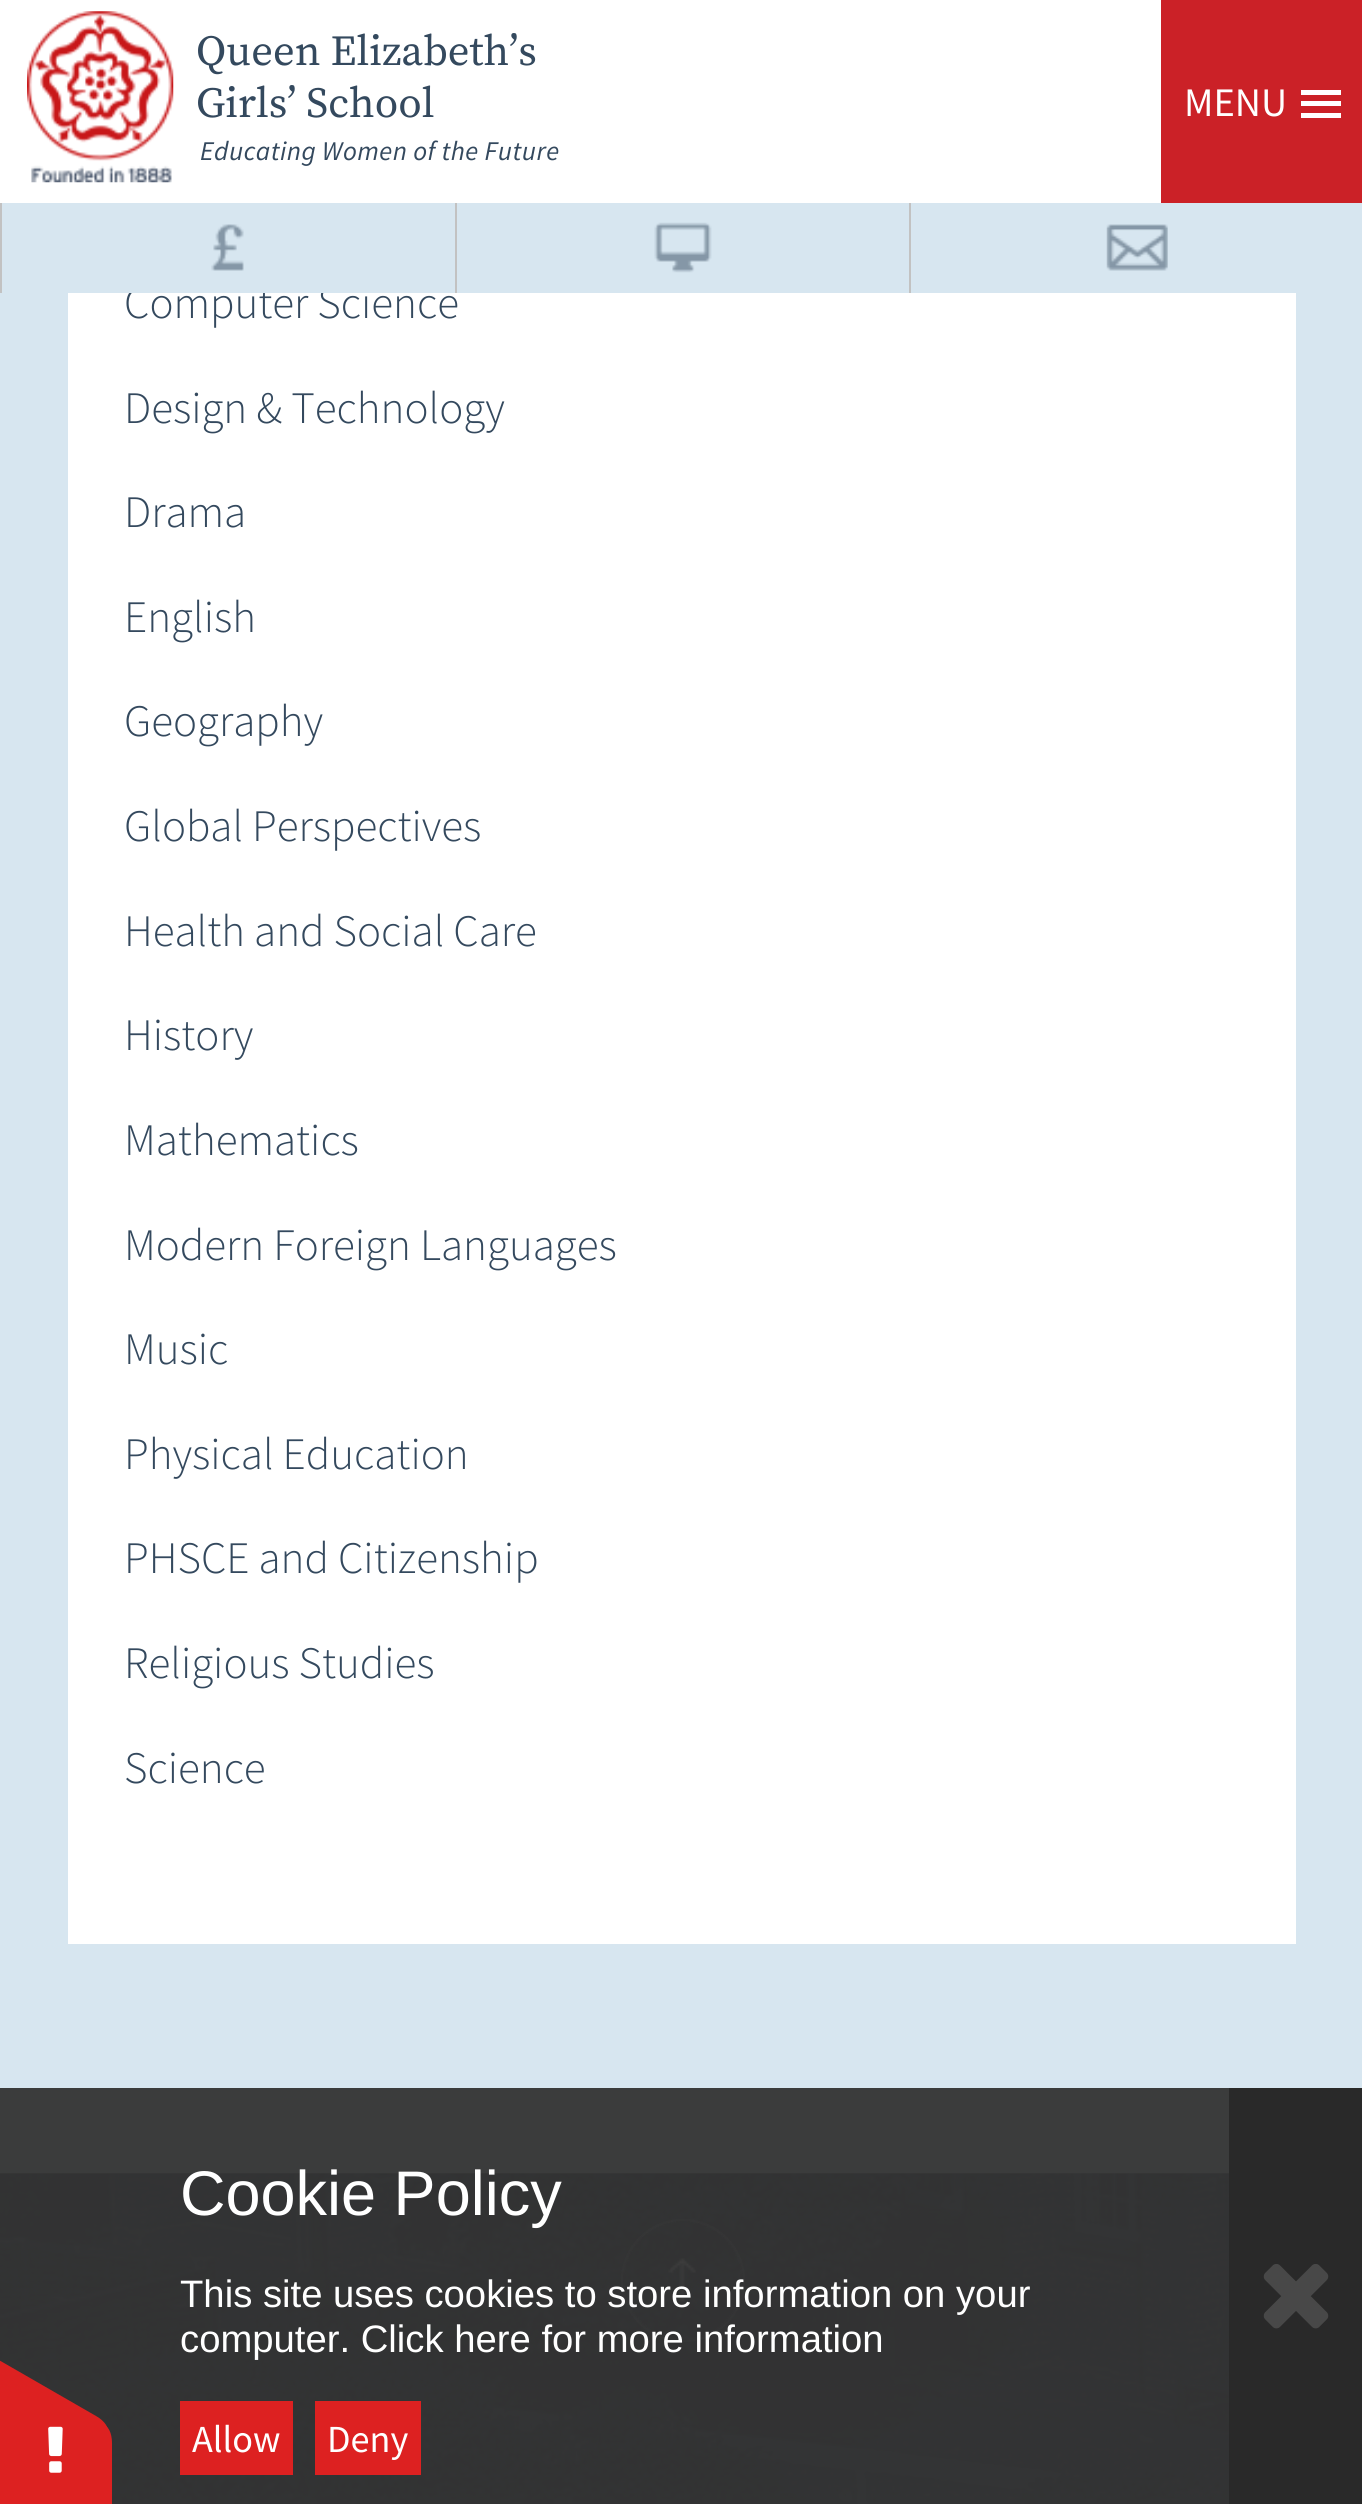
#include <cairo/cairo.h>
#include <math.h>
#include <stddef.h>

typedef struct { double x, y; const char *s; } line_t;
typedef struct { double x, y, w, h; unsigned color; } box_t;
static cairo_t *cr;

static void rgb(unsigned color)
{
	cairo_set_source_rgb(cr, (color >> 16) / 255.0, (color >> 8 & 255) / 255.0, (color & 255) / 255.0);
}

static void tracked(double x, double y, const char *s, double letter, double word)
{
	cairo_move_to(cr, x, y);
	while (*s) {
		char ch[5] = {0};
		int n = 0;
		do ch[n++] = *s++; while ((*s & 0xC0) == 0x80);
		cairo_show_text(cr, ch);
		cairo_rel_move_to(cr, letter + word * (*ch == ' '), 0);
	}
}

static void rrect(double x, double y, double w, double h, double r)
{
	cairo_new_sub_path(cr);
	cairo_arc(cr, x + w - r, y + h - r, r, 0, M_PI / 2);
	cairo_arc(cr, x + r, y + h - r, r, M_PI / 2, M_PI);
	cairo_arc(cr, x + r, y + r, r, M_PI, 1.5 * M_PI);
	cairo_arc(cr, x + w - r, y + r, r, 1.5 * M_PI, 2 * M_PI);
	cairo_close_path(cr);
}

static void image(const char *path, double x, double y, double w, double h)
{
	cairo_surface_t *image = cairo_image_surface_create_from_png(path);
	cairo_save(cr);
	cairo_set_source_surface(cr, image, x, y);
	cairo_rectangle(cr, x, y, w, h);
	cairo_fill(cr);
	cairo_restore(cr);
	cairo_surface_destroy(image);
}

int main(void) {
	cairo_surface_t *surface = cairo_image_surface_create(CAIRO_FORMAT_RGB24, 1362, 2504);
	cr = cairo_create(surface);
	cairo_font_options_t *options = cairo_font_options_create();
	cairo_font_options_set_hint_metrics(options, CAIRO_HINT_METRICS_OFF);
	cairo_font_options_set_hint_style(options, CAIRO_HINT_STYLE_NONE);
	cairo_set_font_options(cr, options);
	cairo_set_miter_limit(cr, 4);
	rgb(0xd7e6f0);
	cairo_paint(cr);
	rgb(0xffffff);
	cairo_rectangle(cr, 0, 0, 1161, 203);
	cairo_fill(cr);
	image("img/1.png", 27, 11, 147, 172);
	{
		static const box_t items[] = {
			{1161, 0, 201, 203, 0xcb2127},
			{1301, 90, 40, 5, 0xffffff},
			{1301, 101, 40, 5, 0xffffff},
			{1301, 113, 40, 5, 0xffffff},
			{0, 203, 2, 90, 0xc2c2c2},
		};
		for (size_t i = 0; i < sizeof items / sizeof *items; i++) {
			rgb(items[i].color);
			cairo_rectangle(cr, items[i].x, items[i].y, items[i].w, items[i].h);
			cairo_fill(cr);
		}
	}
	image("img/2.png", 211, 224, 33, 47);
	image("img/3.png", 654, 222, 58, 51);
	cairo_rectangle(cr, 909, 203, 2, 90);
	cairo_fill(cr);
	image("img/4.png", 1106, 224, 62, 47);
	rgb(0x3b3c3c);
	cairo_rectangle(cr, 0, 2088, 1229, 86);
	cairo_fill(cr);
	rgb(0xffffff);
	cairo_rectangle(cr, 68, 293, 1228, 1651);
	cairo_fill(cr);
	image("img/5.png", 0, 2173, 1229, 331);
	rrect(622, 2220, 122, 121, 60.5);
	cairo_set_source_rgba(cr, 0.239, 0.239, 0.239, 0.25);
	cairo_stroke(cr);
	image("img/6.png", 624, 2221, 118, 118);
	rgb(0xdd2121);
	cairo_new_path(cr);
	cairo_move_to(cr, 112, 2443);
	cairo_line_to(cr, 112, 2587);
	cairo_curve_to(cr, 112, 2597, 108, 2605, 103, 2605);
	cairo_line_to(cr, -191, 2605);
	cairo_curve_to(cr, -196, 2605, -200, 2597, -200, 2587);
	cairo_line_to(cr, -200, 2443);
	cairo_curve_to(cr, -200, 2433, -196, 2425, -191, 2425);
	cairo_line_to(cr, 103, 2425);
	cairo_curve_to(cr, 108, 2425, 112, 2433, 112, 2443);
	cairo_close_path(cr);
	cairo_fill(cr);
	cairo_new_path(cr);
	cairo_move_to(cr, -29, 2344);
	cairo_line_to(cr, 96, 2416);
	cairo_curve_to(cr, 105, 2421, 110, 2429, 107, 2433);
	cairo_line_to(cr, -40, 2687);
	cairo_curve_to(cr, -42, 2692, -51, 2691, -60, 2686);
	cairo_line_to(cr, -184, 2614);
	cairo_curve_to(cr, -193, 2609, -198, 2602, -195, 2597);
	cairo_line_to(cr, -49, 2343);
	cairo_curve_to(cr, -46, 2339, -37, 2339, -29, 2344);
	cairo_close_path(cr);
	cairo_fill(cr);
	image("img/7.png", 48, 2426, 15, 47);
	{
		static const box_t items[] = {
			{180, 2401, 113, 74, 0xdd2121},
			{315, 2401, 106, 74, 0xdd2121},
			{1229, 2088, 133, 416, 0x292929},
		};
		for (size_t i = 0; i < sizeof items / sizeof *items; i++) {
			rgb(items[i].color);
			cairo_rectangle(cr, items[i].x, items[i].y, items[i].w, items[i].h);
			cairo_fill(cr);
		}
	}
	image("img/8.png", 1263, 2264, 66, 65);
	cairo_select_font_face(cr, "Source Serif Pro", CAIRO_FONT_SLANT_NORMAL, CAIRO_FONT_WEIGHT_NORMAL);
	cairo_set_font_size(cr, 42.75);
	rgb(0x34495e);
	cairo_move_to(cr, 196, 65);
	cairo_show_text(cr, "Queen Elizabeth’s");
	cairo_move_to(cr, 196, 117);
	cairo_show_text(cr, "Girls’ School");
	cairo_select_font_face(cr, "Source Sans Pro", CAIRO_FONT_SLANT_ITALIC, CAIRO_FONT_WEIGHT_NORMAL);
	cairo_set_font_size(cr, 27);
	tracked(200, 160, "Educating Women of the Future", 0.45, 0);
	cairo_select_font_face(cr, "Source Sans Pro", CAIRO_FONT_SLANT_NORMAL, CAIRO_FONT_WEIGHT_NORMAL);
	cairo_set_font_size(cr, 40.5);
	rgb(0xffffff);
	cairo_move_to(cr, 1184, 116);
	cairo_show_text(cr, "MENU");
	cairo_select_font_face(cr, "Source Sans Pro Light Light", CAIRO_FONT_SLANT_NORMAL, CAIRO_FONT_WEIGHT_NORMAL);
	cairo_set_font_size(cr, 45);
	rgb(0x34495e);
	cairo_move_to(cr, 124, 318);
	cairo_show_text(cr, "Computer Science");
	rgb(0xc2c2c2);
	cairo_rectangle(cr, 455, 203, 2, 90);
	cairo_fill(cr);
	rgb(0xd7e6f0);
	cairo_rectangle(cr, 129, 287, 239, 6);
	cairo_fill(cr);
	rgb(0x34495e);
	{
		static const line_t items[] = {
			{124, 423, "Design & Technology"},
			{124, 527, "Drama"},
			{124, 632, "English"},
			{124, 736, "Geography"},
			{124, 841, "Global Perspectives"},
			{124, 946, "Health and Social Care"},
			{124, 1050, "History"},
			{124, 1155, "Mathematics"},
			{124, 1260, "Modern Foreign Languages"},
			{124, 1364, "Music"},
			{124, 1469, "Physical Education"},
			{124, 1573, "PHSCE and Citizenship"},
			{124, 1678, "Religious Studies"},
			{124, 1783, "Science"},
		};
		for (size_t i = 0; i < sizeof items / sizeof *items; i++) {
			cairo_move_to(cr, items[i].x, items[i].y);
			cairo_show_text(cr, items[i].s);
		}
	}
	cairo_select_font_face(cr, "Liberation Sans", CAIRO_FONT_SLANT_NORMAL, CAIRO_FONT_WEIGHT_NORMAL);
	cairo_set_font_size(cr, 63);
	rgb(0xffffff);
	cairo_move_to(cr, 180, 2215);
	cairo_show_text(cr, "Cookie Policy");
	cairo_set_font_size(cr, 38.25);
	cairo_move_to(cr, 180, 2307);
	cairo_show_text(cr, "This site uses cookies to store information on your");
	cairo_move_to(cr, 180, 2352);
	cairo_show_text(cr, "computer. Click here for more information");
	cairo_select_font_face(cr, "Source Sans Pro", CAIRO_FONT_SLANT_NORMAL, CAIRO_FONT_WEIGHT_NORMAL);
	cairo_move_to(cr, 192, 2452);
	cairo_show_text(cr, "Allow");
	cairo_move_to(cr, 327, 2452);
	cairo_show_text(cr, "Deny");
	cairo_surface_write_to_png(surface, "page.png");
	cairo_font_options_destroy(options);
	cairo_destroy(cr);
	cairo_surface_destroy(surface);
	return 0;
}
